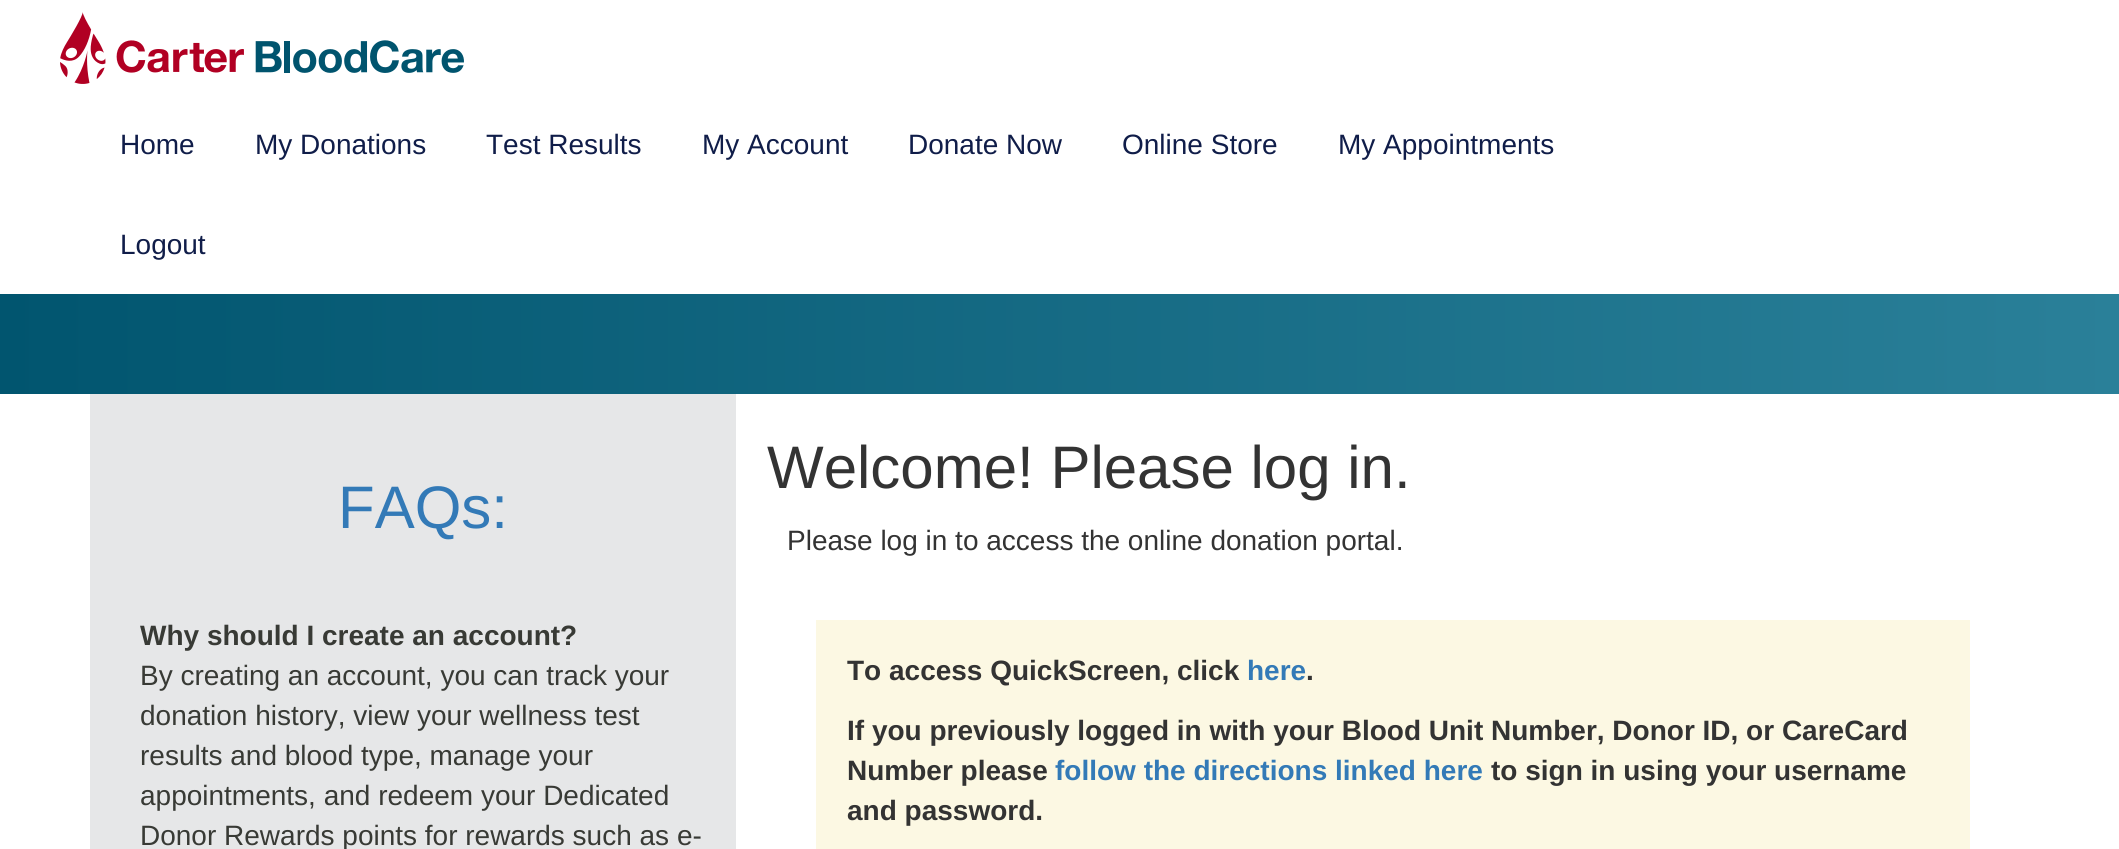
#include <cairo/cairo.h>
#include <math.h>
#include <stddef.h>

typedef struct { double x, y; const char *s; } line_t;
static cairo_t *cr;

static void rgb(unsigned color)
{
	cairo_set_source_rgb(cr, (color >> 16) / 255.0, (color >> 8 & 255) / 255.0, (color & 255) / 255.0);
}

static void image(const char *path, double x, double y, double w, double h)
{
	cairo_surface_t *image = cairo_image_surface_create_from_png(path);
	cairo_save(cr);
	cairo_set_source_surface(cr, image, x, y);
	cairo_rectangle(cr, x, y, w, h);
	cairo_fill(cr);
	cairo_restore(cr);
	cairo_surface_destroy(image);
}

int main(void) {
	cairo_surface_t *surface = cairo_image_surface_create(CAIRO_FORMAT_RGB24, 2119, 849);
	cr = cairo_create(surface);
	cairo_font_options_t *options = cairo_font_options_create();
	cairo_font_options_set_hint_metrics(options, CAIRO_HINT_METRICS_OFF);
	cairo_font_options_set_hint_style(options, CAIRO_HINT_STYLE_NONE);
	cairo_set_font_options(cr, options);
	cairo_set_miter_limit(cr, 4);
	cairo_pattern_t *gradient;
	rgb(0xffffff);
	cairo_paint(cr);
	image("img/1.png", 60, 12, 404, 72);
	gradient = cairo_pattern_create_linear(0, 344, 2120, 344);
	cairo_pattern_add_color_stop_rgba(gradient, 0, 0.004, 0.333, 0.435, 1);
	cairo_pattern_add_color_stop_rgba(gradient, 1, 0.165, 0.502, 0.6, 1);
	cairo_set_source(cr, gradient);
	cairo_pattern_destroy(gradient);
	cairo_rectangle(cr, 0, 294, 2119, 100);
	cairo_fill(cr);
	rgb(0xe6e7e8);
	cairo_rectangle(cr, 90, 394, 646, 455);
	cairo_fill(cr);
	rgb(0xfcf8e3);
	cairo_rectangle(cr, 816, 620, 1154, 229);
	cairo_fill(cr);
	cairo_select_font_face(cr, "Liberation Sans", CAIRO_FONT_SLANT_NORMAL, CAIRO_FONT_WEIGHT_NORMAL);
	cairo_set_font_size(cr, 28);
	rgb(0x101d49);
	{
		static const line_t items[] = {
			{120, 154, "Home"},
			{255, 154, "My Donations"},
			{486, 154, "Test Results"},
			{702, 154, "My Account"},
			{908, 154, "Donate Now"},
			{1122, 154, "Online Store"},
			{1338, 154, "My Appointments"},
			{120, 254, "Logout"},
		};
		for (size_t i = 0; i < sizeof items / sizeof *items; i++) {
			cairo_move_to(cr, items[i].x, items[i].y);
			cairo_show_text(cr, items[i].s);
		}
	}
	cairo_set_font_size(cr, 60);
	rgb(0x337ab7);
	cairo_move_to(cr, 338, 528);
	cairo_show_text(cr, "FAQs:");
	cairo_select_font_face(cr, "Liberation Sans", CAIRO_FONT_SLANT_NORMAL, CAIRO_FONT_WEIGHT_BOLD);
	cairo_set_font_size(cr, 28);
	rgb(0x383a35);
	cairo_move_to(cr, 140, 645);
	cairo_show_text(cr, "Why should I create an account?");
	cairo_select_font_face(cr, "Liberation Sans", CAIRO_FONT_SLANT_NORMAL, CAIRO_FONT_WEIGHT_NORMAL);
	{
		static const line_t items[] = {
			{140, 685, "By creating an account, you can track your"},
			{140, 725, "donation history, view your wellness test"},
			{140, 765, "results and blood type, manage your"},
			{140, 805, "appointments, and redeem your Dedicated"},
			{140, 845, "Donor Rewards points for rewards such as e-"},
		};
		for (size_t i = 0; i < sizeof items / sizeof *items; i++) {
			cairo_move_to(cr, items[i].x, items[i].y);
			cairo_show_text(cr, items[i].s);
		}
	}
	cairo_set_font_size(cr, 60);
	rgb(0x333333);
	cairo_move_to(cr, 767, 488);
	cairo_show_text(cr, "Welcome! Please log in.");
	cairo_set_font_size(cr, 28);
	cairo_move_to(cr, 787, 550);
	cairo_show_text(cr, "Please log in to access the online donation portal.");
	cairo_select_font_face(cr, "Liberation Sans", CAIRO_FONT_SLANT_NORMAL, CAIRO_FONT_WEIGHT_BOLD);
	cairo_move_to(cr, 847, 680);
	cairo_show_text(cr, "To access QuickScreen, click");
	rgb(0x337ab7);
	cairo_move_to(cr, 1247, 680);
	cairo_show_text(cr, "here");
	rgb(0x333333);
	{
		static const line_t items[] = {
			{1306, 680, "."},
			{847, 740, "If you previously logged in with your Blood Unit Number, Donor ID, or CareCard"},
			{847, 780, "Number please"},
		};
		for (size_t i = 0; i < sizeof items / sizeof *items; i++) {
			cairo_move_to(cr, items[i].x, items[i].y);
			cairo_show_text(cr, items[i].s);
		}
	}
	rgb(0x337ab7);
	cairo_move_to(cr, 1055, 780);
	cairo_show_text(cr, "follow the directions linked here");
	rgb(0x333333);
	cairo_move_to(cr, 1491, 780);
	cairo_show_text(cr, "to sign in using your username");
	cairo_move_to(cr, 847, 820);
	cairo_show_text(cr, "and password.");
	cairo_surface_write_to_png(surface, "page.png");
	cairo_font_options_destroy(options);
	cairo_destroy(cr);
	cairo_surface_destroy(surface);
	return 0;
}
